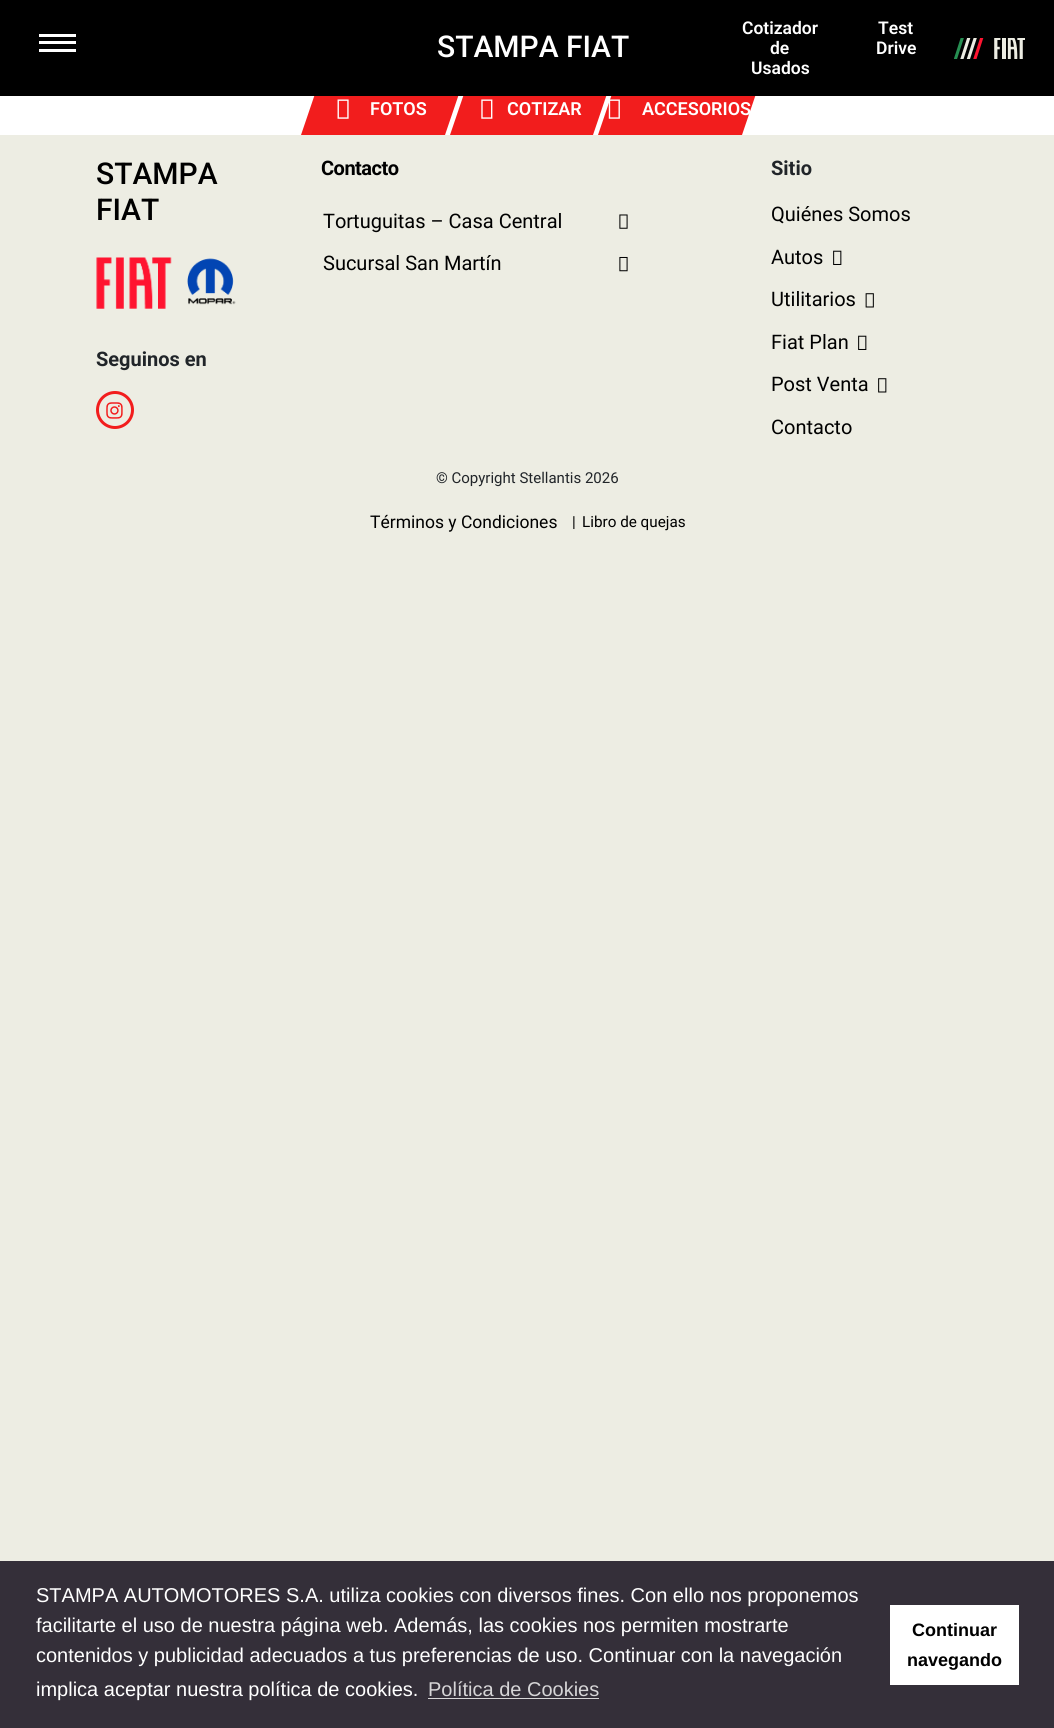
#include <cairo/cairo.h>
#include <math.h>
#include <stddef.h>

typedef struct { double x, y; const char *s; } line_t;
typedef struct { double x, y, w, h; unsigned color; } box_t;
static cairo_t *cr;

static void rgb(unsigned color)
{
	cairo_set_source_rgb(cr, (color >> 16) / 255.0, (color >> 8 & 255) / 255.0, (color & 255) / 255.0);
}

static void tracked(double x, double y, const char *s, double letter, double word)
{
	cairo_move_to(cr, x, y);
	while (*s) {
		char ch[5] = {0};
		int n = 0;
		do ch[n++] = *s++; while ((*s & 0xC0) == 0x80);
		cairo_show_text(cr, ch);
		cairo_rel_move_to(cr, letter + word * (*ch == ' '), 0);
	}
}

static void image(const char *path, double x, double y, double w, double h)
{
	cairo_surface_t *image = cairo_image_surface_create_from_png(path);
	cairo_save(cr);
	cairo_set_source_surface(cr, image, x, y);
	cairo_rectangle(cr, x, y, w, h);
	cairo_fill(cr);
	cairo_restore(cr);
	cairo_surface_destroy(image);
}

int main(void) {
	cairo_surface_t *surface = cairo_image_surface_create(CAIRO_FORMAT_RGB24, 1054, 1728);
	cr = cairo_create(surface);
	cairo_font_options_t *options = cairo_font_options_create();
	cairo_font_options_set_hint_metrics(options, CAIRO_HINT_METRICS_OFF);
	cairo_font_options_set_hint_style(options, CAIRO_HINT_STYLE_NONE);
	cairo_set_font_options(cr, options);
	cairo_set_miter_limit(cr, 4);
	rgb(0xedede3);
	cairo_paint(cr);
	rgb(0xffffff);
	cairo_rectangle(cr, 0, 96, 1054, 39);
	cairo_fill(cr);
	rgb(0xf21d1d);
	cairo_new_path(cr);
	cairo_move_to(cr, 318, 85);
	cairo_line_to(cr, 462, 85);
	cairo_line_to(cr, 445, 135);
	cairo_line_to(cr, 301, 135);
	cairo_close_path(cr);
	cairo_fill(cr);
	cairo_new_path(cr);
	cairo_move_to(cr, 467, 85);
	cairo_line_to(cr, 610, 85);
	cairo_line_to(cr, 593, 135);
	cairo_line_to(cr, 450, 135);
	cairo_close_path(cr);
	cairo_fill(cr);
	cairo_new_path(cr);
	cairo_move_to(cr, 615, 85);
	cairo_line_to(cr, 759, 85);
	cairo_line_to(cr, 742, 135);
	cairo_line_to(cr, 598, 135);
	cairo_close_path(cr);
	cairo_fill(cr);
	{
		static const box_t items[] = {
			{0, 0, 1054, 96, 0x000000},
			{39, 34, 37, 3, 0xffffff},
			{39, 41, 37, 3, 0xffffff},
			{39, 49, 37, 3, 0xffffff},
		};
		for (size_t i = 0; i < sizeof items / sizeof *items; i++) {
			rgb(items[i].color);
			cairo_rectangle(cr, items[i].x, items[i].y, items[i].w, items[i].h);
			cairo_fill(cr);
		}
	}
	image("img/1.png", 954, 38, 71, 21);
	image("img/2.png", 337, 99, 12, 20);
	image("img/3.png", 481, 99, 12, 20);
	image("img/4.png", 608, 99, 12, 20);
	image("img/5.png", 96, 257, 76, 52);
	image("img/6.png", 187, 258, 49, 47);
	cairo_arc(cr, 115, 410, 17.5, 0, 2 * M_PI);
	rgb(0xf21d1d);
	cairo_set_line_width(cr, 3);
	cairo_stroke(cr);
	image("img/7.png", 106, 402, 17, 17);
	image("img/8.png", 619, 214, 9, 15);
	image("img/9.png", 619, 256, 9, 16);
	image("img/10.png", 833, 250, 9, 15);
	image("img/11.png", 865, 293, 9, 15);
	image("img/10.png", 858, 335, 9, 15);
	image("img/12.png", 878, 378, 9, 15);
	{
		static const box_t items[] = {
			{0, 1561, 1054, 167, 0x342f39},
			{428, 1698, 171, 1, 0xd6d5d7},
			{890, 1605, 129, 80, 0xffffff},
		};
		for (size_t i = 0; i < sizeof items / sizeof *items; i++) {
			rgb(items[i].color);
			cairo_rectangle(cr, items[i].x, items[i].y, items[i].w, items[i].h);
			cairo_fill(cr);
		}
	}
	cairo_select_font_face(cr, "Roboto Medium", CAIRO_FONT_SLANT_NORMAL, CAIRO_FONT_WEIGHT_NORMAL);
	cairo_set_font_size(cr, 30);
	cairo_move_to(cr, 437, 57);
	cairo_show_text(cr, "STAMPA FIAT");
	cairo_select_font_face(cr, "Roboto SemiBold", CAIRO_FONT_SLANT_NORMAL, CAIRO_FONT_WEIGHT_NORMAL);
	cairo_set_font_size(cr, 17.5);
	{
		static const line_t items[] = {
			{742, 34, "Cotizador"},
			{770, 54, "de"},
			{751, 74, "Usados"},
			{878, 34, "Test"},
			{876, 54, "Drive"},
		};
		for (size_t i = 0; i < sizeof items / sizeof *items; i++) {
			cairo_move_to(cr, items[i].x, items[i].y);
			cairo_show_text(cr, items[i].s);
		}
	}
	cairo_set_font_size(cr, 18);
	{
		static const line_t items[] = {
			{370, 115, "FOTOS"},
			{507, 115, "COTIZAR"},
			{642, 115, "ACCESORIOS"},
		};
		for (size_t i = 0; i < sizeof items / sizeof *items; i++) {
			cairo_move_to(cr, items[i].x, items[i].y);
			cairo_show_text(cr, items[i].s);
		}
	}
	cairo_select_font_face(cr, "Roboto Medium", CAIRO_FONT_SLANT_NORMAL, CAIRO_FONT_WEIGHT_NORMAL);
	cairo_set_font_size(cr, 30);
	rgb(0x000000);
	cairo_move_to(cr, 96, 184);
	cairo_show_text(cr, "STAMPA");
	cairo_move_to(cr, 96, 220);
	cairo_show_text(cr, "FIAT");
	cairo_select_font_face(cr, "Roboto", CAIRO_FONT_SLANT_NORMAL, CAIRO_FONT_WEIGHT_BOLD);
	cairo_set_font_size(cr, 20);
	rgb(0x212529);
	cairo_move_to(cr, 96, 366);
	cairo_show_text(cr, "Seguinos en");
	rgb(0x000000);
	tracked(321, 175, "Contacto", -0.5, 0);
	cairo_select_font_face(cr, "Roboto", CAIRO_FONT_SLANT_NORMAL, CAIRO_FONT_WEIGHT_NORMAL);
	cairo_move_to(cr, 323, 228);
	cairo_show_text(cr, "Tortuguitas – Casa Central");
	cairo_move_to(cr, 323, 270);
	cairo_show_text(cr, "Sucursal San Martín");
	cairo_select_font_face(cr, "Roboto", CAIRO_FONT_SLANT_NORMAL, CAIRO_FONT_WEIGHT_BOLD);
	rgb(0x212529);
	cairo_move_to(cr, 771, 175);
	cairo_show_text(cr, "Sitio");
	cairo_select_font_face(cr, "Roboto", CAIRO_FONT_SLANT_NORMAL, CAIRO_FONT_WEIGHT_NORMAL);
	rgb(0x000000);
	{
		static const line_t items[] = {
			{771, 221, "Quiénes Somos"},
			{771, 264, "Autos"},
			{771, 306, "Utilitarios"},
			{771, 349, "Fiat Plan"},
			{771, 391, "Post Venta"},
			{771, 434, "Contacto"},
		};
		for (size_t i = 0; i < sizeof items / sizeof *items; i++) {
			cairo_move_to(cr, items[i].x, items[i].y);
			cairo_show_text(cr, items[i].s);
		}
	}
	cairo_set_font_size(cr, 15);
	rgb(0x212529);
	cairo_move_to(cr, 436, 483);
	cairo_show_text(cr, "© Copyright Stellantis 2026");
	cairo_set_font_size(cr, 17.5);
	rgb(0x000000);
	cairo_move_to(cr, 370, 528);
	cairo_show_text(cr, "Términos y Condiciones");
	cairo_set_font_size(cr, 15.25);
	cairo_move_to(cr, 572, 527);
	cairo_show_text(cr, "|");
	cairo_move_to(cr, 582, 527);
	cairo_show_text(cr, "Libro de quejas");
	cairo_select_font_face(cr, "Liberation Sans", CAIRO_FONT_SLANT_NORMAL, CAIRO_FONT_WEIGHT_NORMAL);
	cairo_set_font_size(cr, 20);
	rgb(0xffffff);
	{
		static const line_t items[] = {
			{36, 1602, "STAMPA AUTOMOTORES S.A. utiliza cookies con diversos fines. Con ello nos proponemos"},
			{36, 1632, "facilitarte el uso de nuestra página web. Además, las cookies nos permiten mostrarte"},
			{36, 1662, "contenidos y publicidad adecuados a tus preferencias de uso. Continuar con la navegación"},
			{36, 1696, "implica aceptar nuestra política de cookies."},
		};
		for (size_t i = 0; i < sizeof items / sizeof *items; i++) {
			cairo_move_to(cr, items[i].x, items[i].y);
			cairo_show_text(cr, items[i].s);
		}
	}
	rgb(0xd6d5d7);
	cairo_move_to(cr, 428, 1696);
	cairo_show_text(cr, "Política de Cookies");
	cairo_select_font_face(cr, "Liberation Sans", CAIRO_FONT_SLANT_NORMAL, CAIRO_FONT_WEIGHT_BOLD);
	cairo_set_font_size(cr, 18);
	rgb(0x000000);
	cairo_move_to(cr, 912, 1636);
	cairo_show_text(cr, "Continuar");
	cairo_move_to(cr, 907, 1666);
	cairo_show_text(cr, "navegando");
	cairo_surface_write_to_png(surface, "page.png");
	cairo_font_options_destroy(options);
	cairo_destroy(cr);
	cairo_surface_destroy(surface);
	return 0;
}
